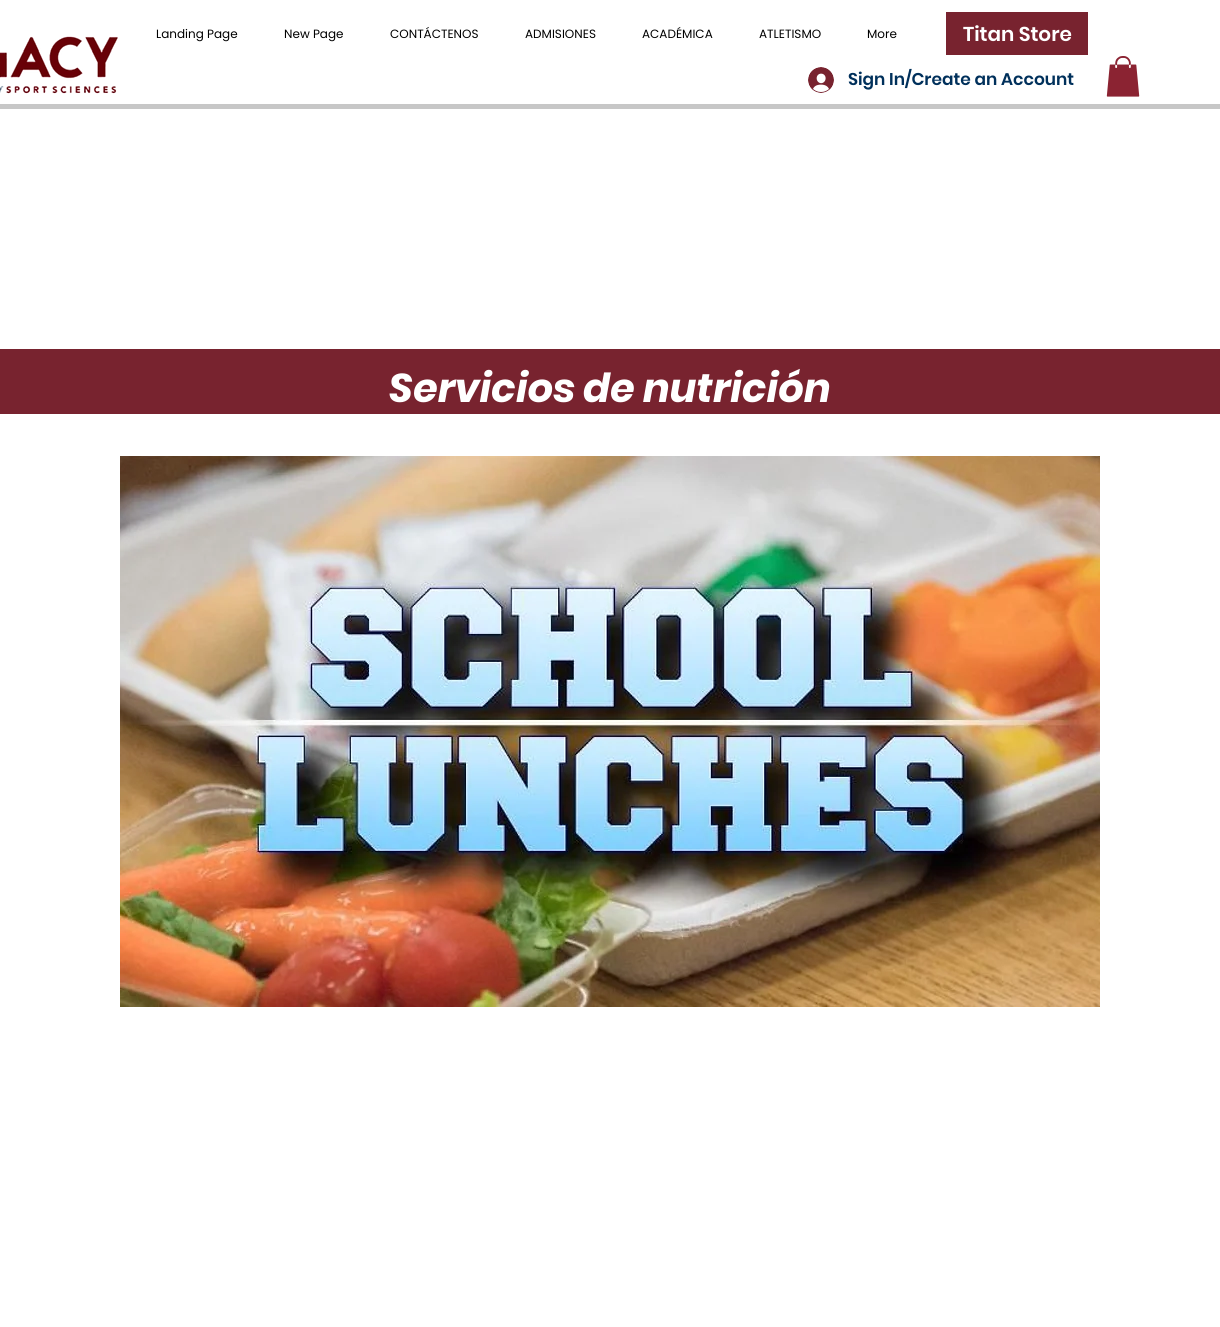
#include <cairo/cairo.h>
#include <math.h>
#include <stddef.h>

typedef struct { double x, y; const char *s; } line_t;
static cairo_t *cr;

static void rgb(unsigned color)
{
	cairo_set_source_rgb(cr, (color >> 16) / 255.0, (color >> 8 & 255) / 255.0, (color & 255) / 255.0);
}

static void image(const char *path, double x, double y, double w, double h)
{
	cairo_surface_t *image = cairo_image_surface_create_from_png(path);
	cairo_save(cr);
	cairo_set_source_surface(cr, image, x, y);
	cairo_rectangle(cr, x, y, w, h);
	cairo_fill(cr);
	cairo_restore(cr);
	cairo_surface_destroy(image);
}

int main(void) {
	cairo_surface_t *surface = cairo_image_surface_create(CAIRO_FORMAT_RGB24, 1220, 1327);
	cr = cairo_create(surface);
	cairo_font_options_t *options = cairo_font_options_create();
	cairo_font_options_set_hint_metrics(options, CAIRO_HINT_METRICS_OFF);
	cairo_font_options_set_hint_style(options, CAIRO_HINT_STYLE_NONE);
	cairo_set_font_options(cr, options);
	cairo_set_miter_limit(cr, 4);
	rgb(0xffffff);
	cairo_paint(cr);
	rgb(0x78232f);
	cairo_rectangle(cr, 946, 12, 142, 43);
	cairo_fill(cr);
	image("img/1.png", 0, 36, 118, 58);
	image("img/2.png", 808, 67, 26, 26);
	image("img/3.png", 1106, 56, 34, 41);
	rgb(0xc7c7c7);
	cairo_rectangle(cr, 0, 104, 1220, 5);
	cairo_fill(cr);
	rgb(0x78232f);
	cairo_rectangle(cr, 0, 349, 1220, 65);
	cairo_fill(cr);
	image("img/4.png", 120, 456, 980, 551);
	cairo_select_font_face(cr, "Poppins", CAIRO_FONT_SLANT_NORMAL, CAIRO_FONT_WEIGHT_NORMAL);
	cairo_set_font_size(cr, 12);
	rgb(0x000000);
	{
		static const line_t items[] = {
			{156, 38, "Landing Page"},
			{284, 38, "New Page"},
			{390, 38, "CONTÁCTENOS"},
			{525, 38, "ADMISIONES"},
			{642, 38, "ACADÉMICA"},
			{759, 38, "ATLETISMO"},
			{867, 38, "More"},
		};
		for (size_t i = 0; i < sizeof items / sizeof *items; i++) {
			cairo_move_to(cr, items[i].x, items[i].y);
			cairo_show_text(cr, items[i].s);
		}
	}
	cairo_select_font_face(cr, "Poppins SemiBold", CAIRO_FONT_SLANT_NORMAL, CAIRO_FONT_WEIGHT_NORMAL);
	cairo_set_font_size(cr, 20);
	rgb(0xffffff);
	cairo_move_to(cr, 963, 41);
	cairo_show_text(cr, "Titan Store");
	cairo_set_font_size(cr, 17);
	rgb(0x00305b);
	cairo_move_to(cr, 848, 85);
	cairo_show_text(cr, "Sign In/Create an Account");
	cairo_select_font_face(cr, "Poppins", CAIRO_FONT_SLANT_ITALIC, CAIRO_FONT_WEIGHT_BOLD);
	cairo_set_font_size(cr, 40);
	rgb(0xffffff);
	cairo_move_to(cr, 389, 402);
	cairo_show_text(cr, "Servicios de nutrición");
	cairo_surface_write_to_png(surface, "page.png");
	cairo_font_options_destroy(options);
	cairo_destroy(cr);
	cairo_surface_destroy(surface);
	return 0;
}
